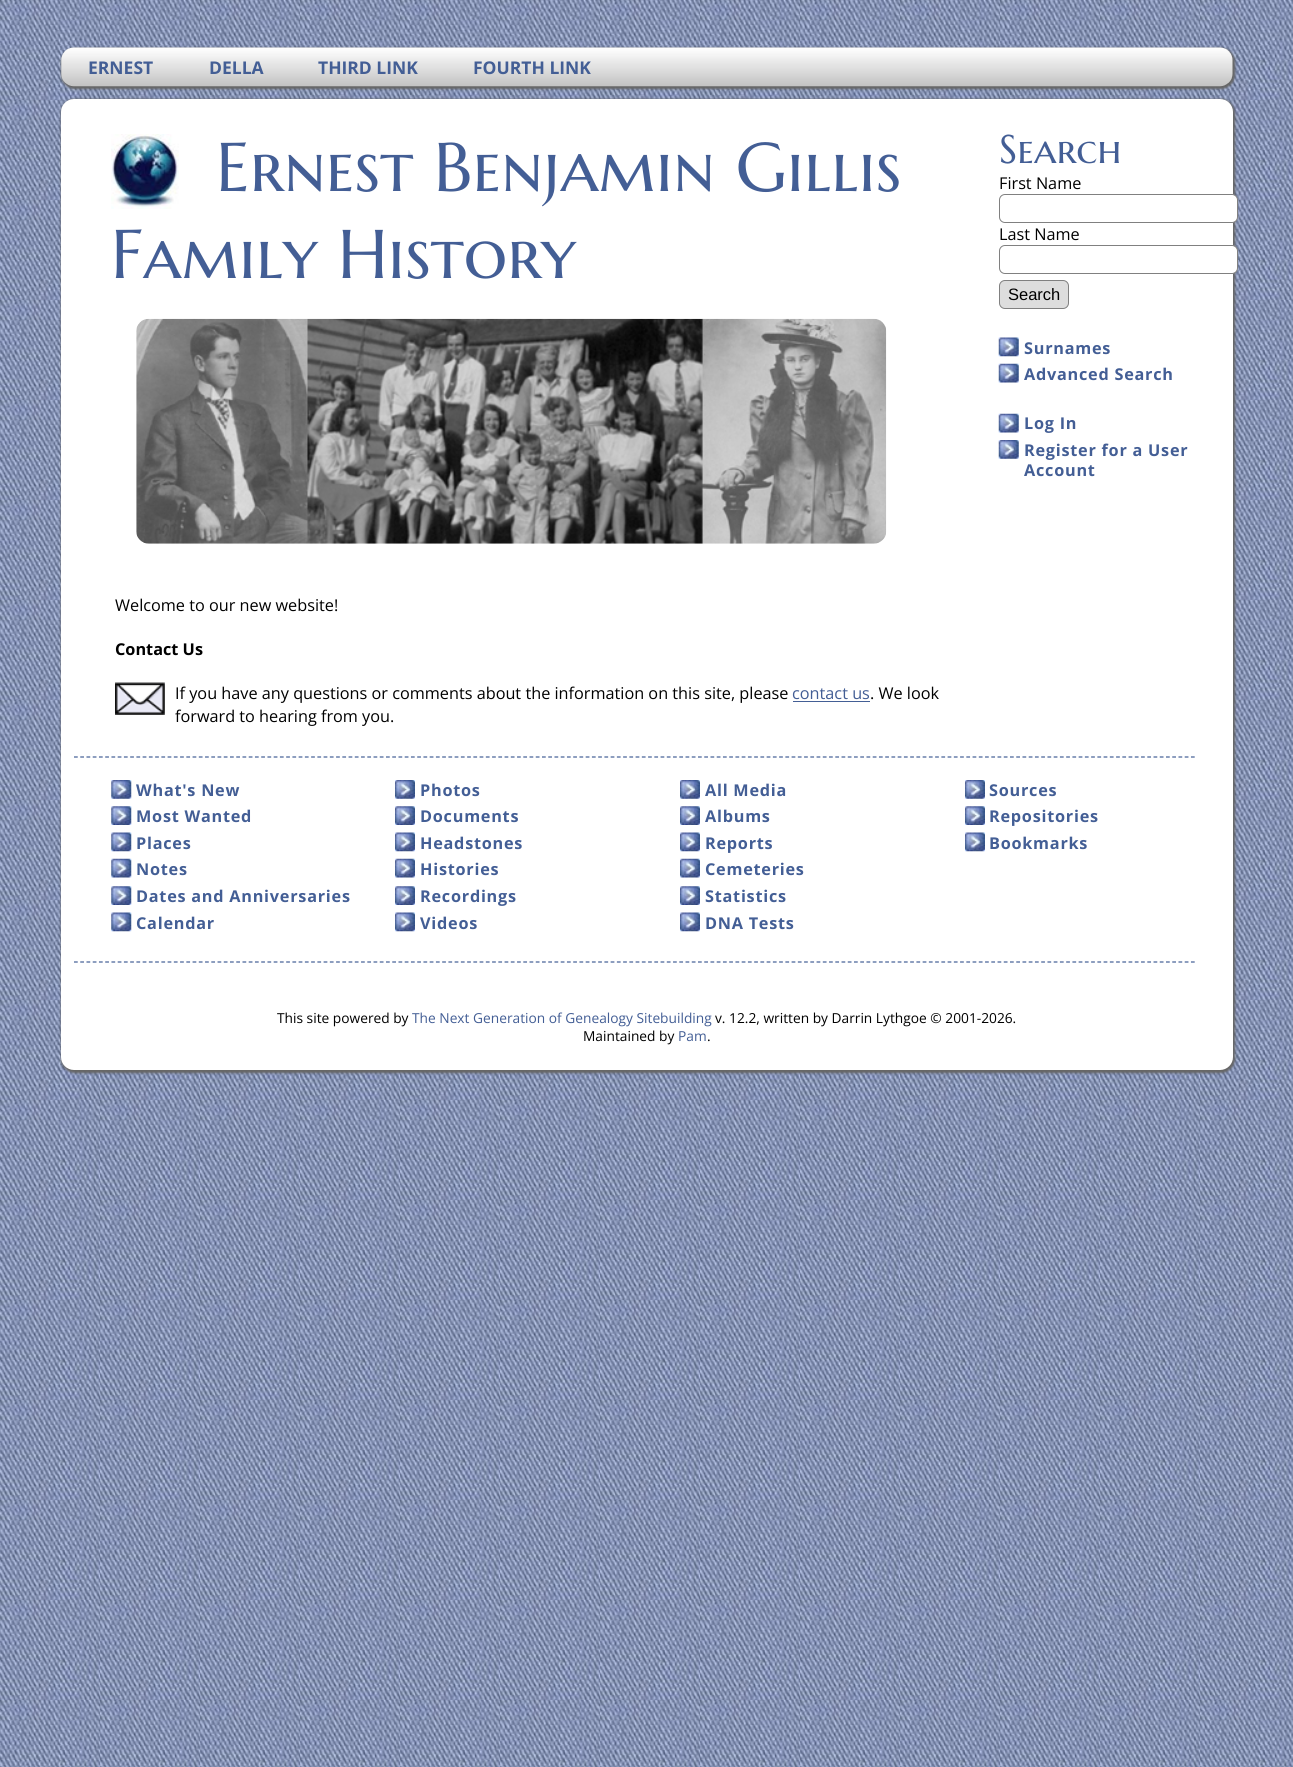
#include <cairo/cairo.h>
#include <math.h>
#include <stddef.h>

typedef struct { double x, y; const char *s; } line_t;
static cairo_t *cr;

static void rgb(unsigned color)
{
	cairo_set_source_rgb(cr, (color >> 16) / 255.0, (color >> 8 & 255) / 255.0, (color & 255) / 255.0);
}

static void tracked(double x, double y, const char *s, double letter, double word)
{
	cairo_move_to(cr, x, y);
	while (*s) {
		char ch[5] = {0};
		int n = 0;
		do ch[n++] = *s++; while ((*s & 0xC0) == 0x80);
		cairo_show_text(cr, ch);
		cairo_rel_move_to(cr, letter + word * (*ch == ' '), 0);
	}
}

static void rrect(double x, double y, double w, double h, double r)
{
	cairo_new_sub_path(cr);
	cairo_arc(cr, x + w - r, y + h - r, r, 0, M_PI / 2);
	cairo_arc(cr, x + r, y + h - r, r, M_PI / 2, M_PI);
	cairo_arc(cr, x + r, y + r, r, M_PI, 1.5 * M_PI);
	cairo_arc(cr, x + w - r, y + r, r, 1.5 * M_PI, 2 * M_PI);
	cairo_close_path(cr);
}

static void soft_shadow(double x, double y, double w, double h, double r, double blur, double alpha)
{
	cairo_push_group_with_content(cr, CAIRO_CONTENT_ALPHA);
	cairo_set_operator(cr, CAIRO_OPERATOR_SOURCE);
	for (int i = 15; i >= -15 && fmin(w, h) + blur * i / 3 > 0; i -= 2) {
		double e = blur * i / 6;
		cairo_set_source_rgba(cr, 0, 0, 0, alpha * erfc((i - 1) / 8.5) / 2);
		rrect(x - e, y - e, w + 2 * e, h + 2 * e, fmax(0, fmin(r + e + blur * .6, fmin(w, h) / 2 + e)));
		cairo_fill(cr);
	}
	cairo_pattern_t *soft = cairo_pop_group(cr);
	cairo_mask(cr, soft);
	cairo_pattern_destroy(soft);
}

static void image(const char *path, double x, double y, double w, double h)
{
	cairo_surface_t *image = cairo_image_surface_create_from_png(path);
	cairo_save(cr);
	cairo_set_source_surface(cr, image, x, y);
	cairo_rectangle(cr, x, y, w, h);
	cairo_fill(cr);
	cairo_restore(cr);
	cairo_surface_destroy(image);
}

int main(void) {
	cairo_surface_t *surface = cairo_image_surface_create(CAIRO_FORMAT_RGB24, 1293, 1767);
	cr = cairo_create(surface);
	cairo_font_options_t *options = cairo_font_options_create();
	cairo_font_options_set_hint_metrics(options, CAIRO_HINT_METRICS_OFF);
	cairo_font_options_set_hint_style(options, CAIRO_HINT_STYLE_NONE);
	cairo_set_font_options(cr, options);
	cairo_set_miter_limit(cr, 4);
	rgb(0xffffff);
	cairo_paint(cr);
	image("img/1.png", 0, 0, 1293, 1767);
	rgb(0x666666);
	soft_shadow(61, 48, 1174, 41, 14, 1, 1);
	image("img/2.png", 61, 47, 1172, 40);
	soft_shadow(61, 99, 1174, 974, 14, 1, 1);
	rgb(0xffffff);
	rrect(61, 99, 1172, 971, 13);
	cairo_fill(cr);
	image("img/3.png", 111, 134, 68, 75);
	image("img/4.png", 136, 318, 751, 226);
	image("img/5.png", 115, 682, 50, 33);
	rgb(0x435e95);
	cairo_rectangle(cr, 793, 701, 77, 1);
	cairo_fill(cr);
	rgb(0xffffff);
	rrect(999.5, 194.5, 238, 28, 5.5);
	cairo_fill_preserve(cr);
	rgb(0x808080);
	cairo_set_line_width(cr, 1);
	cairo_stroke(cr);
	rgb(0xffffff);
	rrect(999.5, 245.5, 238, 28, 5.5);
	cairo_fill_preserve(cr);
	rgb(0x808080);
	cairo_stroke(cr);
	rgb(0xdddddd);
	rrect(999.5, 280.5, 69, 28, 5.5);
	cairo_fill_preserve(cr);
	rgb(0x808080);
	cairo_stroke(cr);
	image("img/6.png", 998, 337, 21, 20);
	image("img/7.png", 998, 363, 21, 20);
	image("img/7.png", 998, 413, 21, 20);
	image("img/8.png", 998, 440, 21, 19);
	cairo_new_path(cr);
	cairo_move_to(cr, 74, 757);
	cairo_line_to(cr, 1195, 757);
	rgb(0x435e95);
	cairo_set_line_width(cr, 1.2);
	cairo_set_dash(cr, (double[]){3.75, 2.49}, 2, 0);
	cairo_stroke(cr);
	image("img/9.png", 111, 780, 21, 19);
	image("img/10.png", 395, 780, 20, 19);
	image("img/11.png", 680, 780, 20, 19);
	image("img/11.png", 965, 780, 20, 19);
	image("img/12.png", 111, 806, 21, 19);
	image("img/13.png", 395, 806, 20, 19);
	image("img/14.png", 680, 806, 20, 19);
	image("img/14.png", 965, 806, 20, 19);
	image("img/15.png", 111, 832, 21, 20);
	image("img/16.png", 395, 832, 20, 20);
	image("img/17.png", 680, 832, 20, 20);
	image("img/17.png", 965, 832, 20, 20);
	image("img/18.png", 111, 858, 21, 20);
	image("img/19.png", 395, 858, 20, 20);
	image("img/20.png", 680, 858, 20, 20);
	image("img/12.png", 111, 886, 21, 19);
	image("img/13.png", 395, 886, 20, 19);
	image("img/14.png", 680, 886, 20, 19);
	image("img/15.png", 111, 912, 21, 20);
	image("img/16.png", 395, 912, 20, 20);
	image("img/17.png", 680, 912, 20, 20);
	cairo_new_path(cr);
	cairo_move_to(cr, 74, 962);
	cairo_line_to(cr, 1195, 962);
	cairo_stroke(cr);
	cairo_select_font_face(cr, "Open Sans", CAIRO_FONT_SLANT_NORMAL, CAIRO_FONT_WEIGHT_BOLD);
	cairo_set_font_size(cr, 17.5);
	{
		static const line_t items[] = {
			{88, 74, "ERNEST"},
			{209, 74, "DELLA"},
			{318, 74, "THIRD LINK"},
			{473, 74, "FOURTH LINK"},
		};
		for (size_t i = 0; i < sizeof items / sizeof *items; i++) {
			cairo_move_to(cr, items[i].x, items[i].y);
			cairo_show_text(cr, items[i].s);
		}
	}
	cairo_select_font_face(cr, "Marcellus SC", CAIRO_FONT_SLANT_NORMAL, CAIRO_FONT_WEIGHT_NORMAL);
	cairo_set_font_size(cr, 68.75);
	cairo_move_to(cr, 216, 191);
	cairo_show_text(cr, "Ernest Benjamin Gillis");
	cairo_move_to(cr, 111, 278);
	cairo_show_text(cr, "Family History");
	cairo_select_font_face(cr, "Open Sans", CAIRO_FONT_SLANT_NORMAL, CAIRO_FONT_WEIGHT_NORMAL);
	cairo_set_font_size(cr, 16.25);
	rgb(0x000000);
	cairo_move_to(cr, 115, 611);
	cairo_show_text(cr, "Welcome to our new website!");
	cairo_select_font_face(cr, "Open Sans", CAIRO_FONT_SLANT_NORMAL, CAIRO_FONT_WEIGHT_BOLD);
	cairo_move_to(cr, 115, 655);
	cairo_show_text(cr, "Contact Us");
	cairo_select_font_face(cr, "Open Sans", CAIRO_FONT_SLANT_NORMAL, CAIRO_FONT_WEIGHT_NORMAL);
	cairo_move_to(cr, 175, 699);
	cairo_show_text(cr, "If you have any questions or comments about the information on this site, please");
	rgb(0x435e95);
	cairo_move_to(cr, 792, 699);
	cairo_show_text(cr, "contact us");
	rgb(0x000000);
	cairo_move_to(cr, 870, 699);
	cairo_show_text(cr, ". We look");
	cairo_move_to(cr, 175, 722);
	cairo_show_text(cr, "forward to hearing from you.");
	cairo_select_font_face(cr, "Marcellus SC", CAIRO_FONT_SLANT_NORMAL, CAIRO_FONT_WEIGHT_NORMAL);
	cairo_set_font_size(cr, 40);
	rgb(0x435e95);
	cairo_move_to(cr, 999, 163);
	cairo_show_text(cr, "Search");
	cairo_select_font_face(cr, "Open Sans", CAIRO_FONT_SLANT_NORMAL, CAIRO_FONT_WEIGHT_NORMAL);
	cairo_set_font_size(cr, 16.25);
	rgb(0x000000);
	cairo_move_to(cr, 999, 189);
	cairo_show_text(cr, "First Name");
	cairo_move_to(cr, 999, 240);
	cairo_show_text(cr, "Last Name");
	cairo_select_font_face(cr, "Liberation Sans", CAIRO_FONT_SLANT_NORMAL, CAIRO_FONT_WEIGHT_NORMAL);
	cairo_set_font_size(cr, 16.5);
	cairo_move_to(cr, 1008, 300);
	cairo_show_text(cr, "Search");
	cairo_select_font_face(cr, "Open Sans", CAIRO_FONT_SLANT_NORMAL, CAIRO_FONT_WEIGHT_BOLD);
	cairo_set_font_size(cr, 16.25);
	rgb(0x435e95);
	{
		static const line_t items[] = {
			{1024, 354, "Surnames"},
			{1024, 380, "Advanced Search"},
			{1024, 429, "Log In"},
			{1024, 456, "Register for a User"},
			{1024, 476, "Account"},
			{136, 796, "What's New"},
			{420, 796, "Photos"},
			{705, 796, "All Media"},
			{989, 796, "Sources"},
			{136, 822, "Most Wanted"},
			{420, 822, "Documents"},
			{705, 822, "Albums"},
			{989, 822, "Repositories"},
			{136, 849, "Places"},
			{420, 849, "Headstones"},
			{705, 849, "Reports"},
			{989, 849, "Bookmarks"},
			{136, 875, "Notes"},
			{420, 875, "Histories"},
			{705, 875, "Cemeteries"},
			{136, 902, "Dates and Anniversaries"},
			{420, 902, "Recordings"},
			{705, 902, "Statistics"},
			{136, 929, "Calendar"},
			{420, 929, "Videos"},
			{705, 929, "DNA Tests"},
		};
		for (size_t i = 0; i < sizeof items / sizeof *items; i++) {
			tracked(items[i].x, items[i].y, items[i].s, 0.75, 0);
		}
	}
	cairo_select_font_face(cr, "Open Sans", CAIRO_FONT_SLANT_NORMAL, CAIRO_FONT_WEIGHT_NORMAL);
	cairo_set_font_size(cr, 13.75);
	rgb(0x000000);
	cairo_move_to(cr, 277, 1023);
	cairo_show_text(cr, "This site powered by");
	rgb(0x435e95);
	cairo_move_to(cr, 412, 1023);
	cairo_show_text(cr, "The Next Generation of Genealogy Sitebuilding");
	rgb(0x000000);
	cairo_move_to(cr, 715, 1023);
	cairo_show_text(cr, "v. 12.2, written by Darrin Lythgoe © 2001-2026.");
	cairo_move_to(cr, 583, 1041);
	cairo_show_text(cr, "Maintained by");
	rgb(0x435e95);
	cairo_move_to(cr, 678, 1041);
	cairo_show_text(cr, "Pam");
	rgb(0x000000);
	cairo_move_to(cr, 707, 1041);
	cairo_show_text(cr, ".");
	cairo_surface_write_to_png(surface, "page.png");
	cairo_font_options_destroy(options);
	cairo_destroy(cr);
	cairo_surface_destroy(surface);
	return 0;
}
